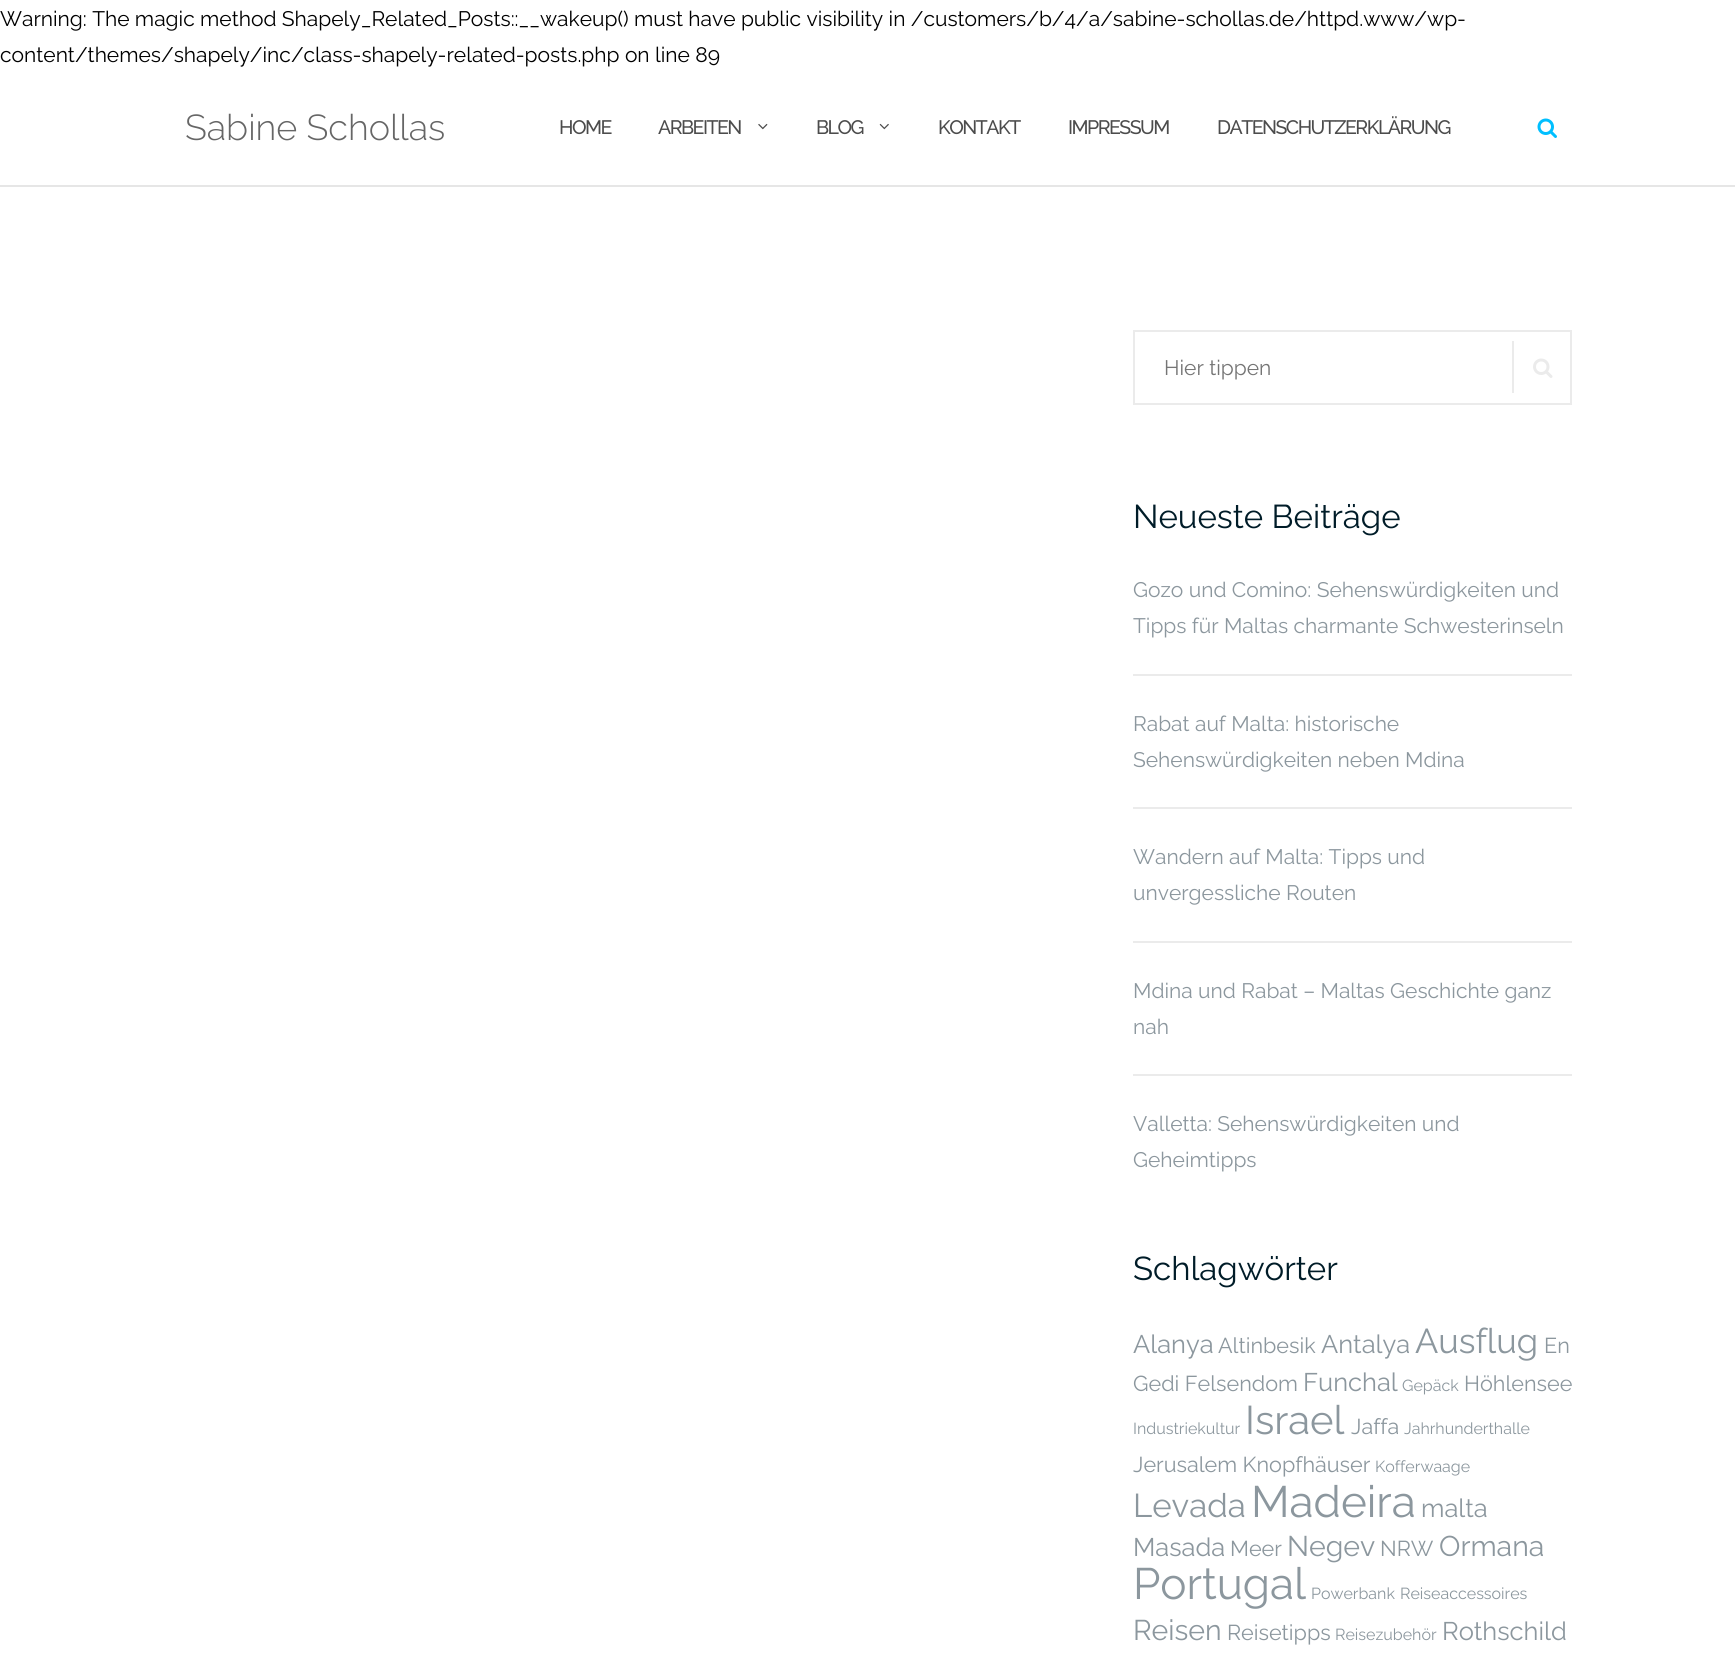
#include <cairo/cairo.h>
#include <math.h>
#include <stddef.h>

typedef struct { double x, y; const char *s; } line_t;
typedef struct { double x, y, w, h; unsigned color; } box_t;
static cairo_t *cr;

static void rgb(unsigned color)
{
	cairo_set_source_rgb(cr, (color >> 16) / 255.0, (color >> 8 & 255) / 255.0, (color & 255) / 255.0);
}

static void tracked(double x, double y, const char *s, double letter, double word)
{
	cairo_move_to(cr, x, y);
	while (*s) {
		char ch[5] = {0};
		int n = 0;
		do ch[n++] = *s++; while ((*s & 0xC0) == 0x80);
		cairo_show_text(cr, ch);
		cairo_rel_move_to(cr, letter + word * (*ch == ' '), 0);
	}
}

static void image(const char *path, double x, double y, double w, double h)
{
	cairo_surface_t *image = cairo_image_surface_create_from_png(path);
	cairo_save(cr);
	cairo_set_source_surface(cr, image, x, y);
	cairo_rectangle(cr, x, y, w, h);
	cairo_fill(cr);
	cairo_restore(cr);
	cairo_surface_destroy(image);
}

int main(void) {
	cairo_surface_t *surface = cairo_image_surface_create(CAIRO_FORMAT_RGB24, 1735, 1672);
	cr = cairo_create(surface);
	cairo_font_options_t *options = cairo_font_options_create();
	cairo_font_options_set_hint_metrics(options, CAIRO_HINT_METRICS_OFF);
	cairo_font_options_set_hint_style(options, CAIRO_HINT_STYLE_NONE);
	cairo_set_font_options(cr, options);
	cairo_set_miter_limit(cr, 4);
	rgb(0xffffff);
	cairo_paint(cr);
	rgb(0xe6e6e6);
	cairo_rectangle(cr, 0, 185, 1735, 2);
	cairo_fill(cr);
	image("img/1.png", 758, 123, 10, 7);
	image("img/2.png", 879, 123, 10, 7);
	image("img/3.png", 1537, 118, 20, 20);
	cairo_rectangle(cr, 1134, 331, 437, 73);
	rgb(0xebebeb);
	cairo_stroke(cr);
	cairo_rectangle(cr, 1512, 341, 2, 52);
	cairo_fill(cr);
	image("img/4.png", 1533, 358, 20, 20);
	{
		static const box_t items[] = {
			{1133, 674, 439, 2, 0xebebeb},
			{1133, 807, 439, 2, 0xebebeb},
			{1133, 941, 439, 2, 0xebebeb},
			{1133, 1074, 439, 2, 0xebebeb},
		};
		for (size_t i = 0; i < sizeof items / sizeof *items; i++) {
			rgb(items[i].color);
			cairo_rectangle(cr, items[i].x, items[i].y, items[i].w, items[i].h);
			cairo_fill(cr);
		}
	}
	cairo_select_font_face(cr, "Raleway", CAIRO_FONT_SLANT_NORMAL, CAIRO_FONT_WEIGHT_NORMAL);
	cairo_set_font_size(cr, 21);
	rgb(0x000000);
	cairo_move_to(cr, 0, 26);
	cairo_show_text(cr, "Warning: The magic method Shapely_Related_Posts::__wakeup() must have public visibility in /customers/b/4/a/sabine-schollas.de/httpd.www/wp-");
	cairo_move_to(cr, 0, 62);
	cairo_show_text(cr, "content/themes/shapely/inc/class-shapely-related-posts.php on line 89");
	cairo_select_font_face(cr, "Raleway Light", CAIRO_FONT_SLANT_NORMAL, CAIRO_FONT_WEIGHT_NORMAL);
	cairo_set_font_size(cr, 36);
	rgb(0x666666);
	cairo_move_to(cr, 185, 140);
	cairo_show_text(cr, "Sabine Schollas");
	cairo_select_font_face(cr, "Raleway Medium", CAIRO_FONT_SLANT_NORMAL, CAIRO_FONT_WEIGHT_NORMAL);
	cairo_set_font_size(cr, 19.5);
	rgb(0x4c4c4c);
	{
		static const line_t items[] = {
			{559, 134, "HOME"},
			{658, 134, "ARBEITEN"},
			{816, 134, "BLOG"},
			{938, 134, "KONTAKT"},
			{1068, 134, "IMPRESSUM"},
			{1217, 134, "DATENSCHUTZERKLÄRUNG"},
		};
		for (size_t i = 0; i < sizeof items / sizeof *items; i++) {
			tracked(items[i].x, items[i].y, items[i].s, -1.5, 0);
		}
	}
	cairo_select_font_face(cr, "Raleway", CAIRO_FONT_SLANT_NORMAL, CAIRO_FONT_WEIGHT_NORMAL);
	cairo_set_font_size(cr, 21);
	rgb(0x757575);
	cairo_move_to(cr, 1164, 375);
	cairo_show_text(cr, "Hier tippen");
	cairo_set_font_size(cr, 33);
	rgb(0x001c28);
	cairo_move_to(cr, 1133, 528);
	cairo_show_text(cr, "Neueste Beiträge");
	cairo_set_font_size(cr, 21);
	rgb(0x8c979e);
	{
		static const line_t items[] = {
			{1133, 597, "Gozo und Comino: Sehenswürdigkeiten und"},
			{1133, 633, "Tipps für Maltas charmante Schwesterinseln"},
			{1133, 731, "Rabat auf Malta: historische"},
			{1133, 767, "Sehenswürdigkeiten neben Mdina"},
			{1133, 864, "Wandern auf Malta: Tipps und"},
			{1133, 900, "unvergessliche Routen"},
			{1133, 998, "Mdina und Rabat – Maltas Geschichte ganz"},
			{1133, 1034, "nah"},
			{1133, 1131, "Valletta: Sehenswürdigkeiten und"},
			{1133, 1167, "Geheimtipps"},
		};
		for (size_t i = 0; i < sizeof items / sizeof *items; i++) {
			cairo_move_to(cr, items[i].x, items[i].y);
			cairo_show_text(cr, items[i].s);
		}
	}
	cairo_set_font_size(cr, 33);
	rgb(0x001c28);
	cairo_move_to(cr, 1133, 1280);
	cairo_show_text(cr, "Schlagwörter");
	cairo_set_font_size(cr, 25.5);
	rgb(0x8c979e);
	cairo_move_to(cr, 1133, 1353);
	cairo_show_text(cr, "Alanya");
	cairo_set_font_size(cr, 21.6);
	cairo_move_to(cr, 1218, 1353);
	cairo_show_text(cr, "Altinbesik");
	cairo_set_font_size(cr, 25.5);
	cairo_move_to(cr, 1321, 1353);
	cairo_show_text(cr, "Antalya");
	cairo_set_font_size(cr, 34.5);
	cairo_move_to(cr, 1415, 1353);
	cairo_show_text(cr, "Ausflug");
	cairo_set_font_size(cr, 21.6);
	cairo_move_to(cr, 1544, 1353);
	cairo_show_text(cr, "En");
	cairo_move_to(cr, 1133, 1391);
	cairo_show_text(cr, "Gedi Felsendom");
	cairo_set_font_size(cr, 25.5);
	cairo_move_to(cr, 1303, 1391);
	cairo_show_text(cr, "Funchal");
	cairo_set_font_size(cr, 16);
	cairo_move_to(cr, 1402, 1391);
	cairo_show_text(cr, "Gepäck");
	cairo_set_font_size(cr, 21.6);
	cairo_move_to(cr, 1464, 1391);
	cairo_show_text(cr, "Höhlensee");
	cairo_set_font_size(cr, 16);
	cairo_move_to(cr, 1133, 1434);
	cairo_show_text(cr, "Industriekultur");
	cairo_set_font_size(cr, 40);
	cairo_move_to(cr, 1245, 1434);
	cairo_show_text(cr, "Israel");
	cairo_set_font_size(cr, 21.6);
	cairo_move_to(cr, 1351, 1434);
	cairo_show_text(cr, "Jaffa");
	cairo_set_font_size(cr, 16);
	cairo_move_to(cr, 1404, 1434);
	cairo_show_text(cr, "Jahrhunderthalle");
	cairo_set_font_size(cr, 21.6);
	cairo_move_to(cr, 1133, 1472);
	cairo_show_text(cr, "Jerusalem Knopfhäuser");
	cairo_set_font_size(cr, 16);
	cairo_move_to(cr, 1375, 1472);
	cairo_show_text(cr, "Kofferwaage");
	cairo_set_font_size(cr, 33);
	cairo_move_to(cr, 1133, 1517);
	cairo_show_text(cr, "Levada");
	cairo_set_font_size(cr, 44);
	cairo_move_to(cr, 1251, 1517);
	cairo_show_text(cr, "Madeira");
	cairo_set_font_size(cr, 25.5);
	cairo_move_to(cr, 1421, 1517);
	cairo_show_text(cr, "malta");
	cairo_move_to(cr, 1133, 1556);
	cairo_show_text(cr, "Masada");
	cairo_set_font_size(cr, 21.6);
	cairo_move_to(cr, 1230, 1556);
	cairo_show_text(cr, "Meer");
	cairo_set_font_size(cr, 28.5);
	cairo_move_to(cr, 1287, 1556);
	cairo_show_text(cr, "Negev");
	cairo_set_font_size(cr, 21.6);
	cairo_move_to(cr, 1380, 1556);
	cairo_show_text(cr, "NRW");
	cairo_set_font_size(cr, 28.5);
	cairo_move_to(cr, 1439, 1556);
	cairo_show_text(cr, "Ormana");
	cairo_set_font_size(cr, 44);
	cairo_move_to(cr, 1133, 1599);
	cairo_show_text(cr, "Portugal");
	cairo_set_font_size(cr, 16);
	cairo_move_to(cr, 1311, 1599);
	cairo_show_text(cr, "Powerbank");
	cairo_move_to(cr, 1400, 1599);
	cairo_show_text(cr, "Reiseaccessoires");
	cairo_set_font_size(cr, 28.5);
	cairo_move_to(cr, 1133, 1640);
	cairo_show_text(cr, "Reisen");
	cairo_set_font_size(cr, 21.6);
	cairo_move_to(cr, 1227, 1640);
	cairo_show_text(cr, "Reisetipps");
	cairo_set_font_size(cr, 16);
	cairo_move_to(cr, 1335, 1640);
	cairo_show_text(cr, "Reisezubehör");
	cairo_set_font_size(cr, 25.5);
	cairo_move_to(cr, 1442, 1640);
	cairo_show_text(cr, "Rothschild");
	cairo_surface_write_to_png(surface, "page.png");
	cairo_font_options_destroy(options);
	cairo_destroy(cr);
	cairo_surface_destroy(surface);
	return 0;
}
